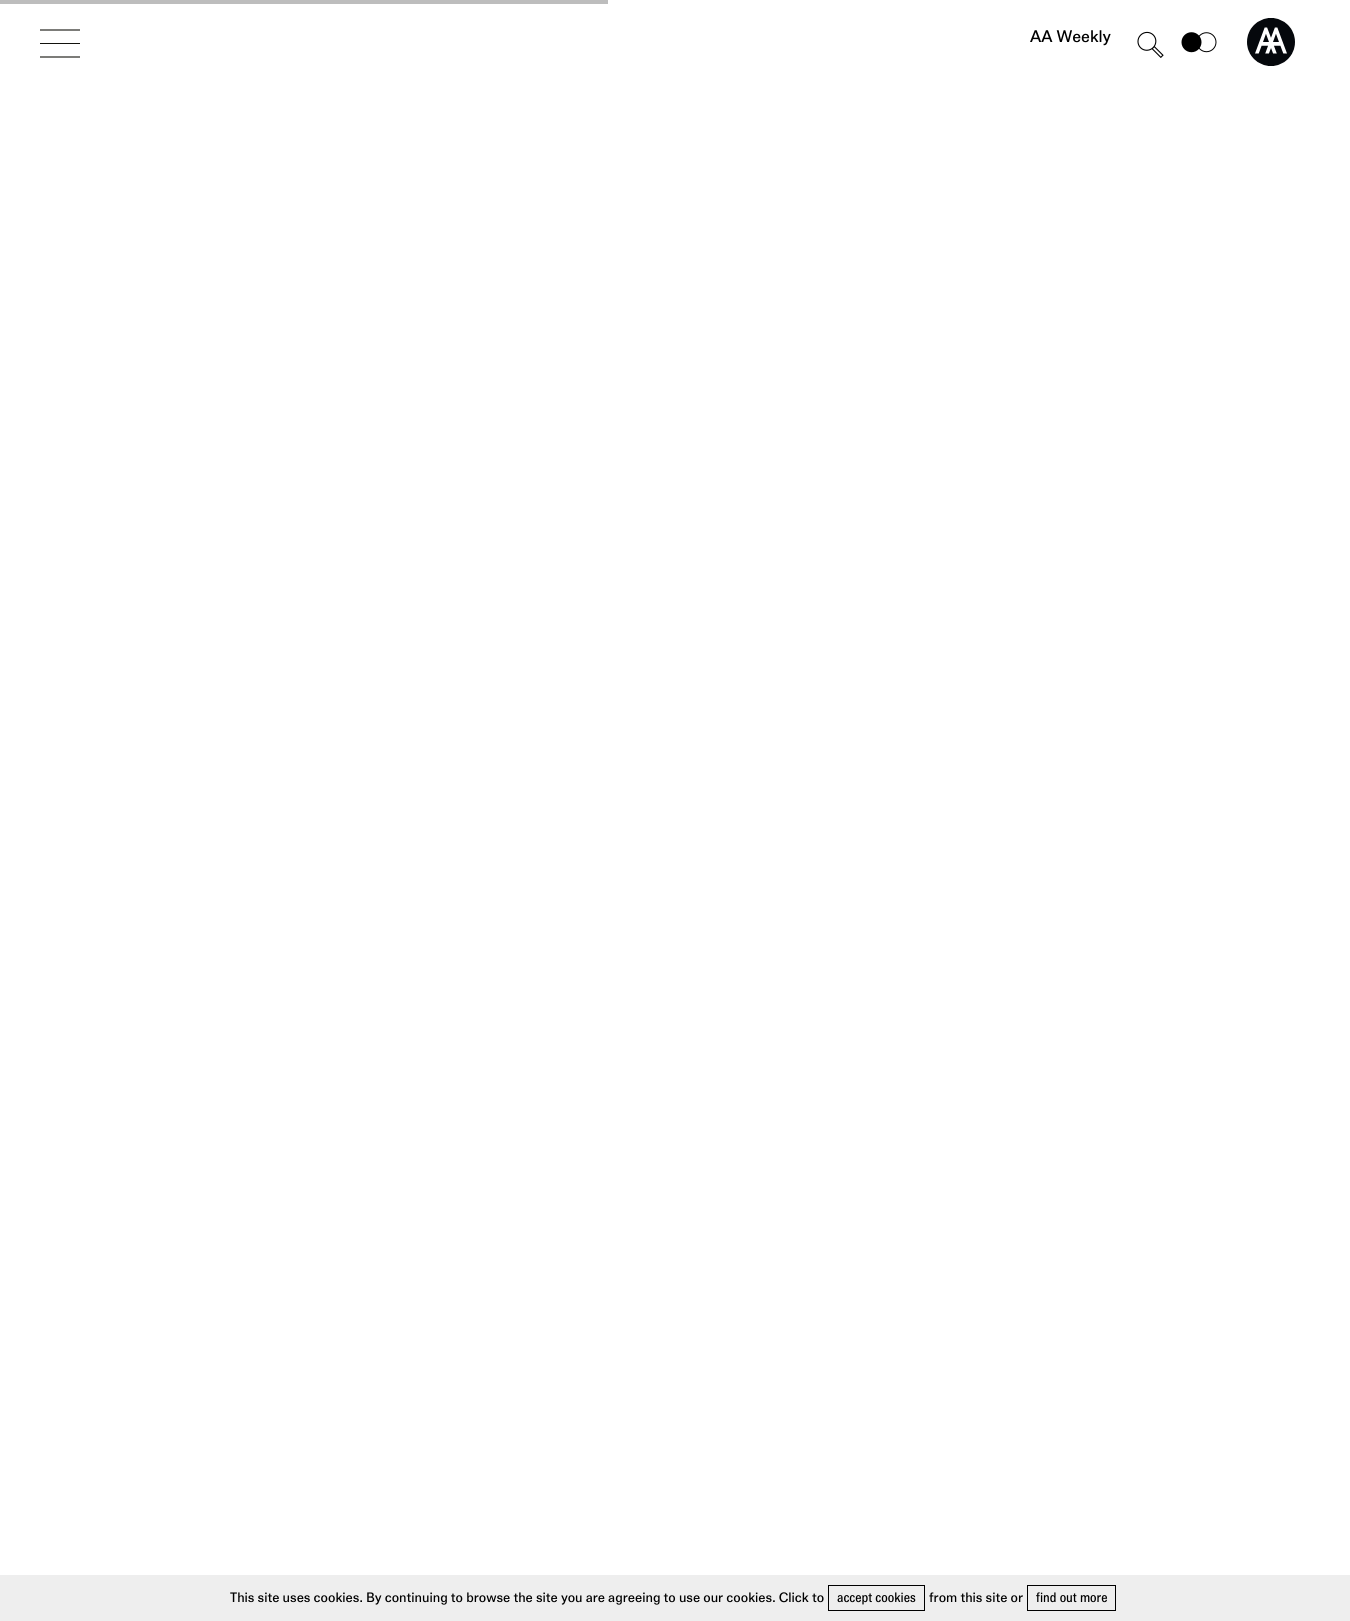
#include <cairo/cairo.h>
#include <math.h>
#include <stddef.h>

static cairo_t *cr;

static void rgb(unsigned color)
{
	cairo_set_source_rgb(cr, (color >> 16) / 255.0, (color >> 8 & 255) / 255.0, (color & 255) / 255.0);
}

static void image(const char *path, double x, double y, double w, double h)
{
	cairo_surface_t *image = cairo_image_surface_create_from_png(path);
	cairo_save(cr);
	cairo_set_source_surface(cr, image, x, y);
	cairo_rectangle(cr, x, y, w, h);
	cairo_fill(cr);
	cairo_restore(cr);
	cairo_surface_destroy(image);
}

int main(void) {
	cairo_surface_t *surface = cairo_image_surface_create(CAIRO_FORMAT_RGB24, 1350, 1621);
	cr = cairo_create(surface);
	cairo_font_options_t *options = cairo_font_options_create();
	cairo_font_options_set_hint_metrics(options, CAIRO_HINT_METRICS_OFF);
	cairo_font_options_set_hint_style(options, CAIRO_HINT_STYLE_NONE);
	cairo_set_font_options(cr, options);
	cairo_set_miter_limit(cr, 4);
	rgb(0xffffff);
	cairo_paint(cr);
	rgb(0xbdbdbd);
	cairo_rectangle(cr, 0, 0, 608, 4);
	cairo_fill(cr);
	rgb(0x12120d);
	cairo_rectangle(cr, 40, 43, 40, 1);
	cairo_fill(cr);
	cairo_save(cr);
	cairo_rectangle(cr, 40, 23, 40, 40);
	cairo_clip(cr);
	cairo_new_path(cr);
	cairo_move_to(cr, 40, 57);
	cairo_line_to(cr, 88, 57);
	cairo_move_to(cr, 40, 30);
	cairo_line_to(cr, 88, 30);
	cairo_set_line_width(cr, 1.1);
	cairo_stroke(cr);
	cairo_restore(cr);
	image("img/1.png", 1137, 31, 27, 27);
	image("img/2.png", 1181, 32, 36, 21);
	image("img/3.png", 1247, 18, 48, 48);
	rgb(0xeeeeee);
	cairo_rectangle(cr, 0, 1575, 1350, 46);
	cairo_fill(cr);
	cairo_rectangle(cr, 828.5, 1585.5, 96, 25);
	rgb(0x000000);
	cairo_set_line_width(cr, 1);
	cairo_stroke(cr);
	cairo_rectangle(cr, 1027.5, 1585.5, 88, 25);
	cairo_stroke(cr);
	cairo_select_font_face(cr, "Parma", CAIRO_FONT_SLANT_NORMAL, CAIRO_FONT_WEIGHT_NORMAL);
	cairo_set_font_size(cr, 16);
	cairo_move_to(cr, 1030, 42);
	cairo_show_text(cr, "AA Weekly");
	cairo_set_font_size(cr, 13);
	cairo_move_to(cr, 230, 1602);
	cairo_show_text(cr, "This site uses cookies. By continuing to browse the site you are agreeing to use our cookies. Click to");
	cairo_select_font_face(cr, "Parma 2", CAIRO_FONT_SLANT_NORMAL, CAIRO_FONT_WEIGHT_NORMAL);
	cairo_move_to(cr, 837, 1602);
	cairo_show_text(cr, "accept cookies");
	cairo_select_font_face(cr, "Parma", CAIRO_FONT_SLANT_NORMAL, CAIRO_FONT_WEIGHT_NORMAL);
	cairo_move_to(cr, 929, 1602);
	cairo_show_text(cr, "from this site or");
	cairo_select_font_face(cr, "Parma 2", CAIRO_FONT_SLANT_NORMAL, CAIRO_FONT_WEIGHT_NORMAL);
	cairo_move_to(cr, 1036, 1602);
	cairo_show_text(cr, "find out more");
	cairo_surface_write_to_png(surface, "page.png");
	cairo_font_options_destroy(options);
	cairo_destroy(cr);
	cairo_surface_destroy(surface);
	return 0;
}
